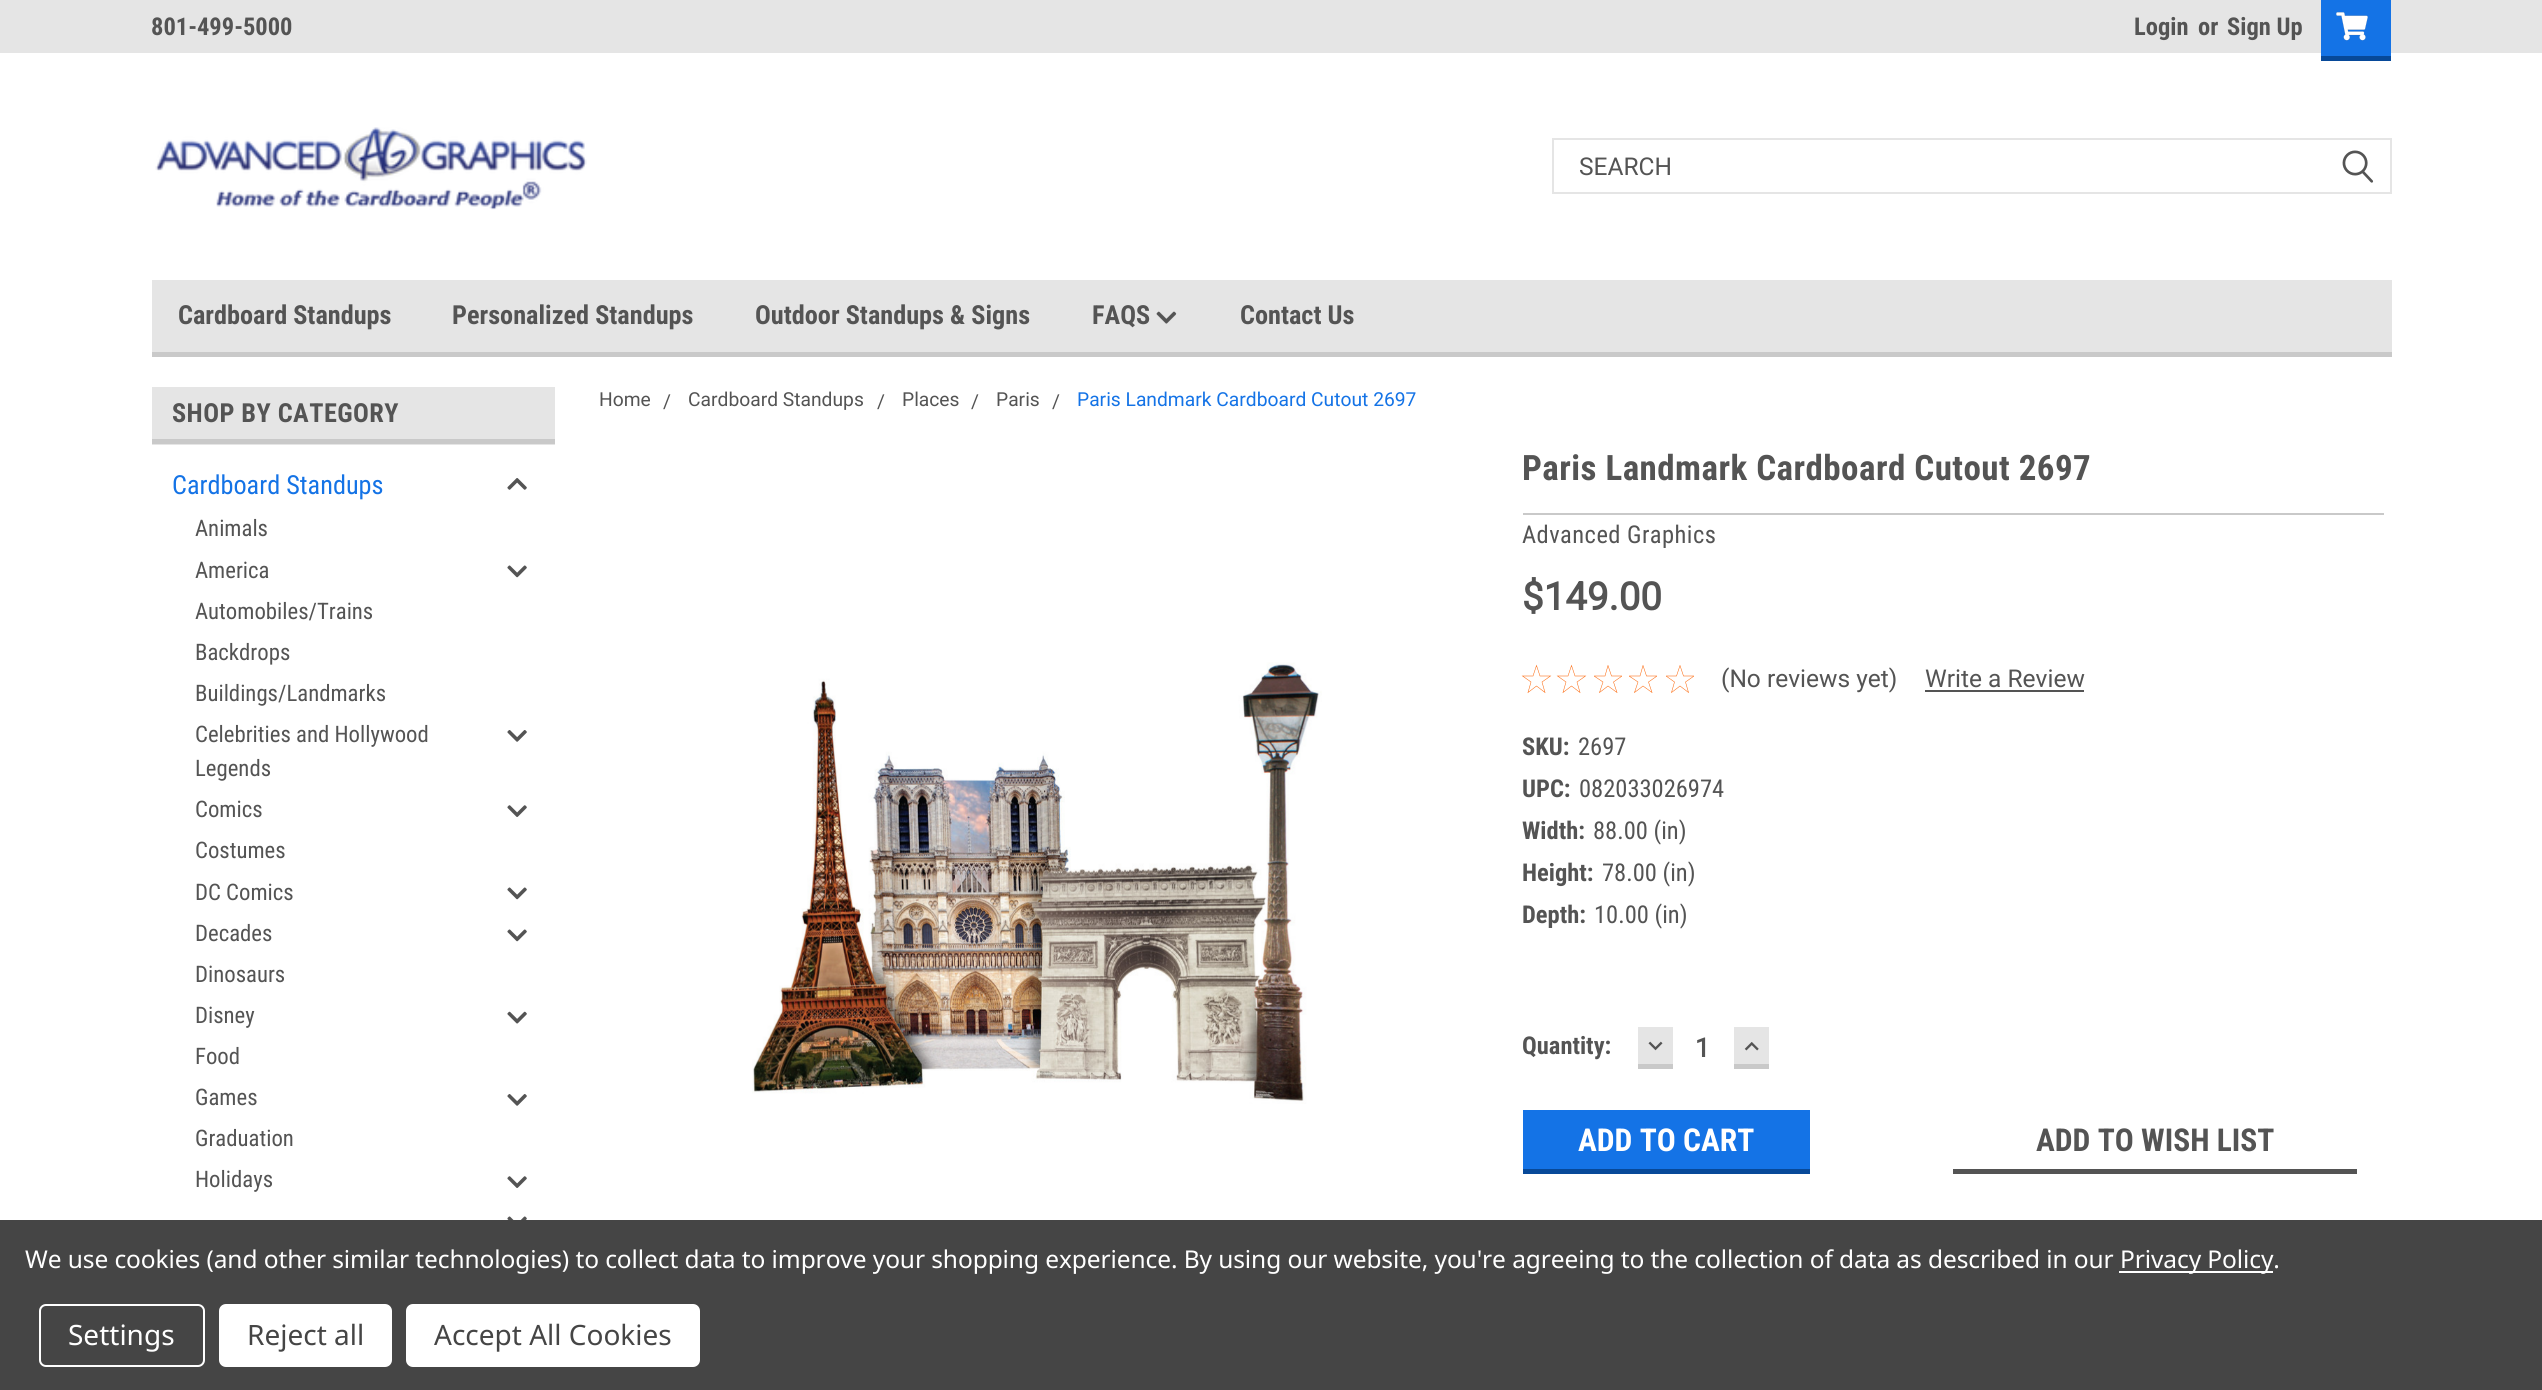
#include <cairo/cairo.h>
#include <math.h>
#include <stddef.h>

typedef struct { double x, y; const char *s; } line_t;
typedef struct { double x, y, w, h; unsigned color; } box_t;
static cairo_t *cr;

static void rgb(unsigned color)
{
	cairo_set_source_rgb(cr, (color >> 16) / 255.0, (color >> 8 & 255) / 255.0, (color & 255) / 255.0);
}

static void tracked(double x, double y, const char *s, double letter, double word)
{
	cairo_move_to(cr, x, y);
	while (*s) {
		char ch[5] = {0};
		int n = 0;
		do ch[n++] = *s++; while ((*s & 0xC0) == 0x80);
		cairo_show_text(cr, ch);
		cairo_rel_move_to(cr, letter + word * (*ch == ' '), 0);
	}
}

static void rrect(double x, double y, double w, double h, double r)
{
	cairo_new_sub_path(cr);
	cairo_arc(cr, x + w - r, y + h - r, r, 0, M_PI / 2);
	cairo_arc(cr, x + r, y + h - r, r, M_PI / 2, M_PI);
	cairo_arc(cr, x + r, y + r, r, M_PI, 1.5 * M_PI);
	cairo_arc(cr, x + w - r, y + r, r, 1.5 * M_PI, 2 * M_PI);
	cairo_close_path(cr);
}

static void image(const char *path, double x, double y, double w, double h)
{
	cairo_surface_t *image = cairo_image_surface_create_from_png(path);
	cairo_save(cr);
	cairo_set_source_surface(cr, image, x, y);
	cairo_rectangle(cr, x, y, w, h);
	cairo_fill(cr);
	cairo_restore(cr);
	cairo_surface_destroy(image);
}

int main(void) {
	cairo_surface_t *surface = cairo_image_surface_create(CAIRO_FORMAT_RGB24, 2542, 1390);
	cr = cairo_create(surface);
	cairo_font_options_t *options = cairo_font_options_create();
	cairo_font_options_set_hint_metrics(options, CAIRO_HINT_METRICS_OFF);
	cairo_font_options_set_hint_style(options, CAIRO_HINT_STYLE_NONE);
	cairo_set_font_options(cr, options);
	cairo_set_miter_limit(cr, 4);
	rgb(0xffffff);
	cairo_paint(cr);
	{
		static const box_t items[] = {
			{0, 0, 2542, 53, 0xe5e5e5},
			{2321, 0, 70, 56, 0x1473e6},
			{2321, 56, 70, 5, 0x074999},
		};
		for (size_t i = 0; i < sizeof items / sizeof *items; i++) {
			rgb(items[i].color);
			cairo_rectangle(cr, items[i].x, items[i].y, items[i].w, items[i].h);
			cairo_fill(cr);
		}
	}
	image("img/1.png", 2336, 12, 32, 29);
	image("img/2.png", 155, 127, 432, 83);
	cairo_rectangle(cr, 1553, 139, 838, 54);
	rgb(0xe5e5e5);
	cairo_stroke(cr);
	image("img/3.png", 2342, 150, 32, 33);
	cairo_rectangle(cr, 152, 280, 2240, 72);
	cairo_fill(cr);
	rgb(0xc9c9c9);
	cairo_rectangle(cr, 152, 352, 2240, 5);
	cairo_fill(cr);
	image("img/4.png", 1156, 311, 21, 13);
	rgb(0xe5e5e5);
	cairo_rectangle(cr, 152, 387, 403, 58);
	cairo_fill(cr);
	rgb(0xc9c9c9);
	cairo_rectangle(cr, 152, 439, 403, 5);
	cairo_fill(cr);
	image("img/5.png", 507, 478, 20, 12);
	image("img/6.png", 507, 565, 20, 13);
	image("img/7.png", 507, 730, 20, 12);
	image("img/8.png", 507, 805, 20, 12);
	image("img/6.png", 507, 887, 20, 13);
	image("img/6.png", 507, 929, 20, 13);
	image("img/9.png", 507, 1011, 20, 13);
	image("img/7.png", 507, 1094, 20, 12);
	image("img/8.png", 507, 1176, 20, 12);
	image("img/10.png", 507, 1216, 20, 4);
	image("img/11.png", 752, 662, 570, 442);
	cairo_rectangle(cr, 1523, 513, 861, 2);
	cairo_fill(cr);
	cairo_new_path(cr);
	cairo_move_to(cr, 1536.5, 665.5);
	cairo_line_to(cr, 1540, 676);
	cairo_line_to(cr, 1550.5, 676);
	cairo_line_to(cr, 1542, 682);
	cairo_line_to(cr, 1545, 692.5);
	cairo_line_to(cr, 1536.5, 686);
	cairo_line_to(cr, 1528, 692.5);
	cairo_line_to(cr, 1531, 682);
	cairo_line_to(cr, 1522.5, 676);
	cairo_line_to(cr, 1533, 676);
	cairo_close_path(cr);
	cairo_move_to(cr, 1571.5, 665.5);
	cairo_line_to(cr, 1575, 676);
	cairo_line_to(cr, 1585.5, 676);
	cairo_line_to(cr, 1577, 682);
	cairo_line_to(cr, 1580, 692.5);
	cairo_line_to(cr, 1571.5, 686);
	cairo_line_to(cr, 1563, 692.5);
	cairo_line_to(cr, 1566, 682);
	cairo_line_to(cr, 1557.5, 676);
	cairo_line_to(cr, 1568, 676);
	cairo_close_path(cr);
	rgb(0xfc6304);
	cairo_set_line_width(cr, 0.5);
	cairo_stroke(cr);
	cairo_save(cr);
	cairo_rectangle(cr, 1594, 665, 28, 28);
	cairo_clip(cr);
	cairo_new_path(cr);
	cairo_move_to(cr, 1608, 665.5);
	cairo_line_to(cr, 1611.5, 676);
	cairo_line_to(cr, 1622, 676);
	cairo_line_to(cr, 1613.5, 682);
	cairo_line_to(cr, 1617, 692.5);
	cairo_line_to(cr, 1608, 686);
	cairo_line_to(cr, 1599.5, 692.5);
	cairo_line_to(cr, 1603, 682);
	cairo_line_to(cr, 1594, 676);
	cairo_line_to(cr, 1605, 676);
	cairo_close_path(cr);
	cairo_stroke(cr);
	cairo_restore(cr);
	cairo_save(cr);
	cairo_rectangle(cr, 1629, 665, 28, 28);
	cairo_clip(cr);
	cairo_new_path(cr);
	cairo_move_to(cr, 1643, 665.5);
	cairo_line_to(cr, 1646.5, 676);
	cairo_line_to(cr, 1657, 676);
	cairo_line_to(cr, 1648.5, 682);
	cairo_line_to(cr, 1652, 692.5);
	cairo_line_to(cr, 1643, 686);
	cairo_line_to(cr, 1634.5, 692.5);
	cairo_line_to(cr, 1638, 682);
	cairo_line_to(cr, 1629, 676);
	cairo_line_to(cr, 1640, 676);
	cairo_close_path(cr);
	cairo_stroke(cr);
	cairo_restore(cr);
	cairo_save(cr);
	cairo_rectangle(cr, 1666, 665, 28, 28);
	cairo_clip(cr);
	cairo_new_path(cr);
	cairo_move_to(cr, 1680, 665.5);
	cairo_line_to(cr, 1683.5, 676);
	cairo_line_to(cr, 1694, 676);
	cairo_line_to(cr, 1685.5, 682);
	cairo_line_to(cr, 1688.5, 692.5);
	cairo_line_to(cr, 1680, 686);
	cairo_line_to(cr, 1671.5, 692.5);
	cairo_line_to(cr, 1674.5, 682);
	cairo_line_to(cr, 1666, 676);
	cairo_line_to(cr, 1676.5, 676);
	cairo_close_path(cr);
	cairo_stroke(cr);
	cairo_restore(cr);
	{
		static const box_t items[] = {
			{1925, 690, 159, 2, 0x545454},
			{1638, 1027, 35, 37, 0xe5e5e5},
			{1638, 1064, 35, 5, 0xc9c9c9},
		};
		for (size_t i = 0; i < sizeof items / sizeof *items; i++) {
			rgb(items[i].color);
			cairo_rectangle(cr, items[i].x, items[i].y, items[i].w, items[i].h);
			cairo_fill(cr);
		}
	}
	image("img/12.png", 1648, 1041, 15, 10);
	rgb(0xe5e5e5);
	cairo_rectangle(cr, 1734, 1027, 35, 37);
	cairo_fill(cr);
	rgb(0xc9c9c9);
	cairo_rectangle(cr, 1734, 1064, 35, 5);
	cairo_fill(cr);
	image("img/13.png", 1744, 1042, 15, 9);
	{
		static const box_t items[] = {
			{1523, 1110, 287, 59, 0x1473e6},
			{1523, 1169, 287, 5, 0x074999},
			{1953, 1169, 404, 5, 0x545454},
			{0, 1220, 2542, 170, 0x454545},
			{2119, 1271, 154, 2, 0xffffff},
		};
		for (size_t i = 0; i < sizeof items / sizeof *items; i++) {
			rgb(items[i].color);
			cairo_rectangle(cr, items[i].x, items[i].y, items[i].w, items[i].h);
			cairo_fill(cr);
		}
	}
	rrect(40, 1305, 164, 61, 6);
	cairo_set_line_width(cr, 2);
	cairo_stroke(cr);
	rrect(219, 1304, 173, 63, 7);
	cairo_fill(cr);
	rrect(406, 1304, 294, 63, 7);
	cairo_fill(cr);
	cairo_select_font_face(cr, "Roboto Condensed", CAIRO_FONT_SLANT_NORMAL, CAIRO_FONT_WEIGHT_BOLD);
	cairo_set_font_size(cr, 24.5);
	rgb(0x545454);
	{
		static const line_t items[] = {
			{151, 35, "801-499-5000"},
			{2134, 35, "Login"},
			{2198, 35, "or"},
			{2227, 35, "Sign Up"},
		};
		for (size_t i = 0; i < sizeof items / sizeof *items; i++) {
			cairo_move_to(cr, items[i].x, items[i].y);
			cairo_show_text(cr, items[i].s);
		}
	}
	cairo_select_font_face(cr, "Roboto", CAIRO_FONT_SLANT_NORMAL, CAIRO_FONT_WEIGHT_NORMAL);
	cairo_move_to(cr, 1579, 175);
	cairo_show_text(cr, "SEARCH");
	cairo_select_font_face(cr, "Roboto Condensed", CAIRO_FONT_SLANT_NORMAL, CAIRO_FONT_WEIGHT_BOLD);
	cairo_set_font_size(cr, 26.25);
	{
		static const line_t items[] = {
			{178, 324, "Cardboard Standups"},
			{452, 324, "Personalized Standups"},
			{755, 324, "Outdoor Standups & Signs"},
			{1092, 324, "FAQS"},
			{1240, 324, "Contact Us"},
		};
		for (size_t i = 0; i < sizeof items / sizeof *items; i++) {
			cairo_move_to(cr, items[i].x, items[i].y);
			cairo_show_text(cr, items[i].s);
		}
	}
	tracked(172, 422, "SHOP BY CATEGORY", 0.45, 0);
	cairo_select_font_face(cr, "Roboto Condensed", CAIRO_FONT_SLANT_NORMAL, CAIRO_FONT_WEIGHT_NORMAL);
	rgb(0x1473e6);
	cairo_move_to(cr, 172, 494);
	cairo_show_text(cr, "Cardboard Standups");
	cairo_set_font_size(cr, 22.75);
	rgb(0x545454);
	{
		static const line_t items[] = {
			{195, 536, "Animals"},
			{195, 578, "America"},
			{195, 619, "Automobiles/Trains"},
			{195, 660, "Backdrops"},
			{195, 701, "Buildings/Landmarks"},
			{195, 742, "Celebrities and Hollywood"},
			{195, 776, "Legends"},
			{195, 817, "Comics"},
			{195, 858, "Costumes"},
			{195, 900, "DC Comics"},
			{195, 941, "Decades"},
			{195, 982, "Dinosaurs"},
			{195, 1023, "Disney"},
			{195, 1064, "Food"},
			{195, 1105, "Games"},
			{195, 1146, "Graduation"},
			{195, 1187, "Holidays"},
		};
		for (size_t i = 0; i < sizeof items / sizeof *items; i++) {
			cairo_move_to(cr, items[i].x, items[i].y);
			cairo_show_text(cr, items[i].s);
		}
	}
	cairo_select_font_face(cr, "Roboto", CAIRO_FONT_SLANT_NORMAL, CAIRO_FONT_WEIGHT_NORMAL);
	cairo_set_font_size(cr, 19.25);
	{
		static const line_t items[] = {
			{599, 406, "Home"},
			{663, 408, "/"},
			{688, 406, "Cardboard Standups"},
			{877, 408, "/"},
			{902, 406, "Places"},
			{971, 408, "/"},
			{996, 406, "Paris"},
			{1052, 408, "/"},
		};
		for (size_t i = 0; i < sizeof items / sizeof *items; i++) {
			cairo_move_to(cr, items[i].x, items[i].y);
			cairo_show_text(cr, items[i].s);
		}
	}
	rgb(0x1473e6);
	cairo_move_to(cr, 1077, 406);
	cairo_show_text(cr, "Paris Landmark Cardboard Cutout 2697");
	cairo_select_font_face(cr, "Roboto Condensed", CAIRO_FONT_SLANT_NORMAL, CAIRO_FONT_WEIGHT_BOLD);
	cairo_set_font_size(cr, 35);
	rgb(0x545454);
	tracked(1522, 480, "Paris Landmark Cardboard Cutout 2697", 0.45, 0);
	cairo_select_font_face(cr, "Roboto Condensed", CAIRO_FONT_SLANT_NORMAL, CAIRO_FONT_WEIGHT_NORMAL);
	cairo_set_font_size(cr, 24.5);
	tracked(1522, 543, "Advanced Graphics", 0.45, 0);
	cairo_select_font_face(cr, "Roboto", CAIRO_FONT_SLANT_NORMAL, CAIRO_FONT_WEIGHT_BOLD);
	cairo_set_font_size(cr, 38.5);
	cairo_move_to(cr, 1522, 610);
	cairo_show_text(cr, "$149.00");
	cairo_select_font_face(cr, "Roboto", CAIRO_FONT_SLANT_NORMAL, CAIRO_FONT_WEIGHT_NORMAL);
	cairo_set_font_size(cr, 24.5);
	cairo_move_to(cr, 1721, 687);
	cairo_show_text(cr, "(No reviews yet)");
	cairo_move_to(cr, 1925, 687);
	cairo_show_text(cr, "Write a Review");
	cairo_select_font_face(cr, "Roboto Condensed", CAIRO_FONT_SLANT_NORMAL, CAIRO_FONT_WEIGHT_BOLD);
	cairo_move_to(cr, 1522, 755);
	cairo_show_text(cr, "SKU:");
	cairo_select_font_face(cr, "Roboto Condensed", CAIRO_FONT_SLANT_NORMAL, CAIRO_FONT_WEIGHT_NORMAL);
	cairo_move_to(cr, 1578, 755);
	cairo_show_text(cr, "2697");
	cairo_select_font_face(cr, "Roboto Condensed", CAIRO_FONT_SLANT_NORMAL, CAIRO_FONT_WEIGHT_BOLD);
	cairo_move_to(cr, 1522, 797);
	cairo_show_text(cr, "UPC:");
	cairo_select_font_face(cr, "Roboto Condensed", CAIRO_FONT_SLANT_NORMAL, CAIRO_FONT_WEIGHT_NORMAL);
	cairo_move_to(cr, 1579, 797);
	cairo_show_text(cr, "082033026974");
	cairo_select_font_face(cr, "Roboto Condensed", CAIRO_FONT_SLANT_NORMAL, CAIRO_FONT_WEIGHT_BOLD);
	cairo_move_to(cr, 1522, 839);
	cairo_show_text(cr, "Width:");
	cairo_select_font_face(cr, "Roboto Condensed", CAIRO_FONT_SLANT_NORMAL, CAIRO_FONT_WEIGHT_NORMAL);
	cairo_move_to(cr, 1593, 839);
	cairo_show_text(cr, "88.00 (in)");
	cairo_select_font_face(cr, "Roboto Condensed", CAIRO_FONT_SLANT_NORMAL, CAIRO_FONT_WEIGHT_BOLD);
	cairo_move_to(cr, 1522, 881);
	cairo_show_text(cr, "Height:");
	cairo_select_font_face(cr, "Roboto Condensed", CAIRO_FONT_SLANT_NORMAL, CAIRO_FONT_WEIGHT_NORMAL);
	cairo_move_to(cr, 1602, 881);
	cairo_show_text(cr, "78.00 (in)");
	cairo_select_font_face(cr, "Roboto Condensed", CAIRO_FONT_SLANT_NORMAL, CAIRO_FONT_WEIGHT_BOLD);
	cairo_move_to(cr, 1522, 923);
	cairo_show_text(cr, "Depth:");
	cairo_select_font_face(cr, "Roboto Condensed", CAIRO_FONT_SLANT_NORMAL, CAIRO_FONT_WEIGHT_NORMAL);
	cairo_move_to(cr, 1594, 923);
	cairo_show_text(cr, "10.00 (in)");
	cairo_select_font_face(cr, "Roboto Condensed", CAIRO_FONT_SLANT_NORMAL, CAIRO_FONT_WEIGHT_BOLD);
	cairo_move_to(cr, 1522, 1054);
	cairo_show_text(cr, "Quantity:");
	cairo_select_font_face(cr, "Roboto", CAIRO_FONT_SLANT_NORMAL, CAIRO_FONT_WEIGHT_BOLD);
	cairo_set_font_size(cr, 26.25);
	cairo_move_to(cr, 1695, 1057);
	cairo_show_text(cr, "1");
	cairo_select_font_face(cr, "Roboto Condensed", CAIRO_FONT_SLANT_NORMAL, CAIRO_FONT_WEIGHT_BOLD);
	cairo_set_font_size(cr, 31.5);
	rgb(0xffffff);
	cairo_move_to(cr, 1578, 1151);
	cairo_show_text(cr, "ADD TO CART");
	rgb(0x545454);
	cairo_move_to(cr, 2036, 1151);
	cairo_show_text(cr, "ADD TO WISH LIST");
	cairo_select_font_face(cr, "Noto Sans", CAIRO_FONT_SLANT_NORMAL, CAIRO_FONT_WEIGHT_NORMAL);
	cairo_set_font_size(cr, 24.5);
	rgb(0xffffff);
	tracked(25, 1268, "We use cookies (and other similar technologies) to collect data to improve your shopping experience. By using our website, you're agreeing to the collection of data as described in our", -0.09, 0);
	tracked(2120, 1268, "Privacy Policy.", -0.09, 0);
	cairo_set_font_size(cr, 28);
	cairo_move_to(cr, 68, 1345);
	cairo_show_text(cr, "Settings");
	rgb(0x454545);
	cairo_move_to(cr, 247, 1345);
	cairo_show_text(cr, "Reject all");
	cairo_move_to(cr, 434, 1345);
	cairo_show_text(cr, "Accept All Cookies");
	cairo_surface_write_to_png(surface, "page.png");
	cairo_font_options_destroy(options);
	cairo_destroy(cr);
	cairo_surface_destroy(surface);
	return 0;
}
